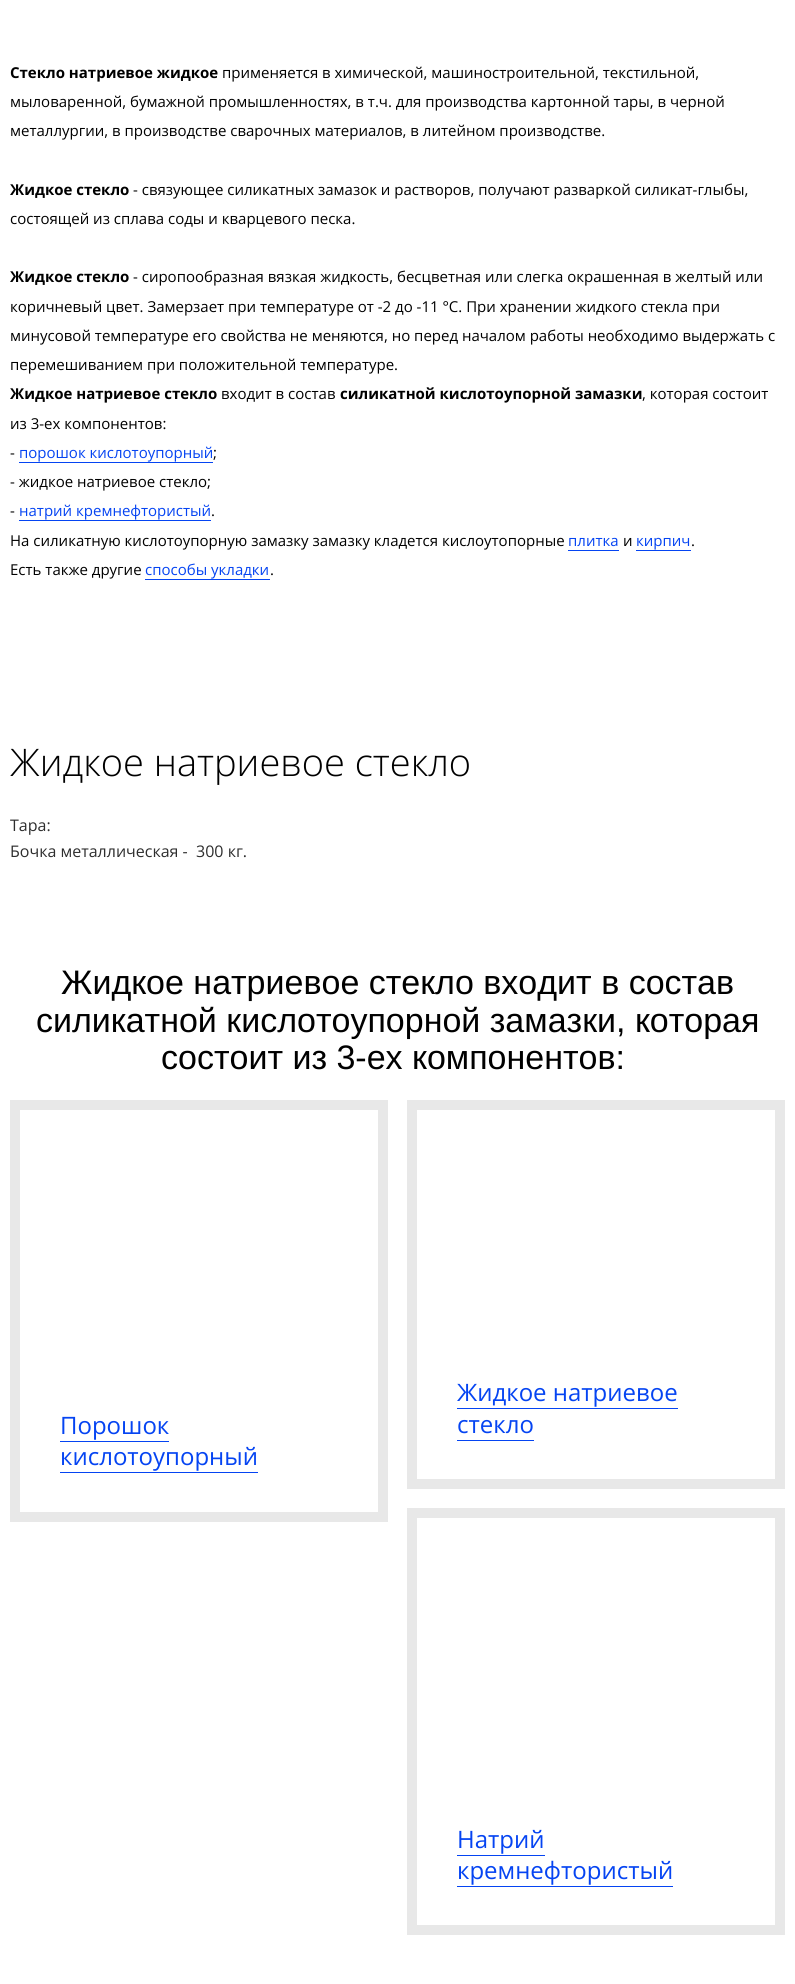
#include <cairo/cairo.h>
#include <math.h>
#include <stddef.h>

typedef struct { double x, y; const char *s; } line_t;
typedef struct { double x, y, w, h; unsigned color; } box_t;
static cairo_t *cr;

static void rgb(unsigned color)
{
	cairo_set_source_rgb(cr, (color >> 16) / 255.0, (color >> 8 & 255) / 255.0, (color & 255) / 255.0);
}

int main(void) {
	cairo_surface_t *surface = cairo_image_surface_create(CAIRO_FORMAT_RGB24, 795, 1984);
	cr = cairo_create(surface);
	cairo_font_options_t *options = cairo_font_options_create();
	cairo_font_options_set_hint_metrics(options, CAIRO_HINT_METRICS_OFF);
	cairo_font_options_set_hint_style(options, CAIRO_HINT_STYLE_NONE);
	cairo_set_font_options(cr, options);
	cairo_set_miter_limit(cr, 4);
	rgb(0xffffff);
	cairo_paint(cr);
	{
		static const box_t items[] = {
			{19, 462, 194, 1, 0x0544f2},
			{19, 520, 192, 1, 0x0544f2},
			{568, 550, 51, 1, 0x0544f2},
			{636, 550, 55, 1, 0x0544f2},
			{145, 579, 125, 1, 0x0544f2},
		};
		for (size_t i = 0; i < sizeof items / sizeof *items; i++) {
			rgb(items[i].color);
			cairo_rectangle(cr, items[i].x, items[i].y, items[i].w, items[i].h);
			cairo_fill(cr);
		}
	}
	cairo_rectangle(cr, 412, 1105, 368, 379);
	rgb(0xe8e8e8);
	cairo_set_line_width(cr, 10);
	cairo_stroke(cr);
	rgb(0x0544f2);
	cairo_rectangle(cr, 457, 1408, 221, 1);
	cairo_fill(cr);
	cairo_rectangle(cr, 457, 1440, 77, 1);
	cairo_fill(cr);
	cairo_rectangle(cr, 15, 1105, 368, 412);
	rgb(0xe8e8e8);
	cairo_stroke(cr);
	rgb(0x0544f2);
	cairo_rectangle(cr, 60, 1441, 109, 1);
	cairo_fill(cr);
	cairo_rectangle(cr, 60, 1472, 198, 1);
	cairo_fill(cr);
	cairo_rectangle(cr, 412, 1513, 368, 417);
	rgb(0xe8e8e8);
	cairo_stroke(cr);
	rgb(0x0544f2);
	cairo_rectangle(cr, 457, 1855, 88, 1);
	cairo_fill(cr);
	cairo_rectangle(cr, 457, 1886, 216, 1);
	cairo_fill(cr);
	cairo_select_font_face(cr, "Open Sans", CAIRO_FONT_SLANT_NORMAL, CAIRO_FONT_WEIGHT_BOLD);
	cairo_set_font_size(cr, 15);
	rgb(0x000000);
	cairo_move_to(cr, 10, 78);
	cairo_show_text(cr, "Стекло натриевое жидкое");
	cairo_select_font_face(cr, "Open Sans", CAIRO_FONT_SLANT_NORMAL, CAIRO_FONT_WEIGHT_NORMAL);
	{
		static const line_t items[] = {
			{222, 78, "применяется в химической, машиностроительной, текстильной,"},
			{10, 107, "мыловаренной, бумажной промышленностях, в т.ч. для производства картонной тары, в черной"},
			{10, 136, "металлургии, в производстве сварочных материалов, в литейном производстве."},
		};
		for (size_t i = 0; i < sizeof items / sizeof *items; i++) {
			cairo_move_to(cr, items[i].x, items[i].y);
			cairo_show_text(cr, items[i].s);
		}
	}
	cairo_select_font_face(cr, "Open Sans", CAIRO_FONT_SLANT_NORMAL, CAIRO_FONT_WEIGHT_BOLD);
	cairo_move_to(cr, 10, 195);
	cairo_show_text(cr, "Жидкое стекло");
	cairo_select_font_face(cr, "Open Sans", CAIRO_FONT_SLANT_NORMAL, CAIRO_FONT_WEIGHT_NORMAL);
	cairo_move_to(cr, 133, 195);
	cairo_show_text(cr, "- связующее силикатных замазок и растворов, получают разваркой силикат-глыбы,");
	cairo_move_to(cr, 10, 224);
	cairo_show_text(cr, "состоящей из сплава соды и кварцевого песка.");
	cairo_select_font_face(cr, "Open Sans", CAIRO_FONT_SLANT_NORMAL, CAIRO_FONT_WEIGHT_BOLD);
	cairo_move_to(cr, 10, 282);
	cairo_show_text(cr, "Жидкое стекло");
	cairo_select_font_face(cr, "Open Sans", CAIRO_FONT_SLANT_NORMAL, CAIRO_FONT_WEIGHT_NORMAL);
	{
		static const line_t items[] = {
			{133, 282, "- сиропообразная вязкая жидкость, бесцветная или слегка окрашенная в желтый или"},
			{10, 312, "коричневый цвет. Замерзает при температуре от -2 до -11 °С. При хранении жидкого стекла при"},
			{10, 341, "минусовой температуре его свойства не меняются, но перед началом работы необходимо выдержать с"},
			{10, 370, "перемешиванием при положительной температуре."},
		};
		for (size_t i = 0; i < sizeof items / sizeof *items; i++) {
			cairo_move_to(cr, items[i].x, items[i].y);
			cairo_show_text(cr, items[i].s);
		}
	}
	cairo_select_font_face(cr, "Open Sans", CAIRO_FONT_SLANT_NORMAL, CAIRO_FONT_WEIGHT_BOLD);
	cairo_move_to(cr, 10, 399);
	cairo_show_text(cr, "Жидкое натриевое стекло");
	cairo_select_font_face(cr, "Open Sans", CAIRO_FONT_SLANT_NORMAL, CAIRO_FONT_WEIGHT_NORMAL);
	cairo_move_to(cr, 221, 399);
	cairo_show_text(cr, "входит в состав");
	cairo_select_font_face(cr, "Open Sans", CAIRO_FONT_SLANT_NORMAL, CAIRO_FONT_WEIGHT_BOLD);
	cairo_move_to(cr, 340, 399);
	cairo_show_text(cr, "силикатной кислотоупорной замазки");
	cairo_select_font_face(cr, "Open Sans", CAIRO_FONT_SLANT_NORMAL, CAIRO_FONT_WEIGHT_NORMAL);
	{
		static const line_t items[] = {
			{642, 399, ", которая состоит"},
			{10, 429, "из 3-ех компонентов:"},
			{10, 458, "-"},
		};
		for (size_t i = 0; i < sizeof items / sizeof *items; i++) {
			cairo_move_to(cr, items[i].x, items[i].y);
			cairo_show_text(cr, items[i].s);
		}
	}
	rgb(0x0544f2);
	cairo_move_to(cr, 19, 458);
	cairo_show_text(cr, "порошок кислотоупорный");
	rgb(0x000000);
	{
		static const line_t items[] = {
			{213, 458, ";"},
			{10, 487, "- жидкое натриевое стекло;"},
			{10, 516, "-"},
		};
		for (size_t i = 0; i < sizeof items / sizeof *items; i++) {
			cairo_move_to(cr, items[i].x, items[i].y);
			cairo_show_text(cr, items[i].s);
		}
	}
	rgb(0x0544f2);
	cairo_move_to(cr, 19, 516);
	cairo_show_text(cr, "натрий кремнефтористый");
	rgb(0x000000);
	cairo_move_to(cr, 211, 516);
	cairo_show_text(cr, ".");
	cairo_move_to(cr, 10, 546);
	cairo_show_text(cr, "На силикатную кислотоупорную замазку замазку кладется кислоутопорные");
	rgb(0x0544f2);
	cairo_move_to(cr, 568, 546);
	cairo_show_text(cr, "плитка");
	rgb(0x000000);
	cairo_move_to(cr, 623, 546);
	cairo_show_text(cr, "и");
	rgb(0x0544f2);
	cairo_move_to(cr, 636, 546);
	cairo_show_text(cr, "кирпич");
	rgb(0x000000);
	cairo_move_to(cr, 691, 546);
	cairo_show_text(cr, ".");
	cairo_move_to(cr, 10, 575);
	cairo_show_text(cr, "Есть также другие");
	rgb(0x0544f2);
	cairo_move_to(cr, 145, 575);
	cairo_show_text(cr, "способы укладки");
	rgb(0x000000);
	cairo_move_to(cr, 270, 575);
	cairo_show_text(cr, ".");
	cairo_select_font_face(cr, "Open Sans Light", CAIRO_FONT_SLANT_NORMAL, CAIRO_FONT_WEIGHT_NORMAL);
	cairo_set_font_size(cr, 38);
	cairo_move_to(cr, 10, 776);
	cairo_show_text(cr, "Жидкое натриевое стекло");
	cairo_select_font_face(cr, "Open Sans", CAIRO_FONT_SLANT_NORMAL, CAIRO_FONT_WEIGHT_NORMAL);
	cairo_set_font_size(cr, 16);
	rgb(0x2e2e2e);
	cairo_move_to(cr, 10, 831);
	cairo_show_text(cr, "Тара:");
	cairo_move_to(cr, 10, 857);
	cairo_show_text(cr, "Бочка металлическая -  300 кг.");
	cairo_select_font_face(cr, "Liberation Sans", CAIRO_FONT_SLANT_NORMAL, CAIRO_FONT_WEIGHT_NORMAL);
	cairo_set_font_size(cr, 34);
	rgb(0x000000);
	{
		static const line_t items[] = {
			{61, 994, "Жидкое натриевое стекло входит в состав"},
			{36, 1032, "силикатной кислотоупорной замазки, которая"},
			{161, 1069, "состоит из 3-ех компонентов:"},
		};
		for (size_t i = 0; i < sizeof items / sizeof *items; i++) {
			cairo_move_to(cr, items[i].x, items[i].y);
			cairo_show_text(cr, items[i].s);
		}
	}
	cairo_select_font_face(cr, "Open Sans", CAIRO_FONT_SLANT_NORMAL, CAIRO_FONT_WEIGHT_NORMAL);
	cairo_set_font_size(cr, 24);
	rgb(0x0544f2);
	{
		static const line_t items[] = {
			{457, 1401, "Жидкое натриевое"},
			{457, 1433, "стекло"},
			{60, 1434, "Порошок"},
			{60, 1465, "кислотоупорный"},
			{457, 1848, "Натрий"},
			{457, 1879, "кремнефтористый"},
		};
		for (size_t i = 0; i < sizeof items / sizeof *items; i++) {
			cairo_move_to(cr, items[i].x, items[i].y);
			cairo_show_text(cr, items[i].s);
		}
	}
	cairo_surface_write_to_png(surface, "page.png");
	cairo_font_options_destroy(options);
	cairo_destroy(cr);
	cairo_surface_destroy(surface);
	return 0;
}
